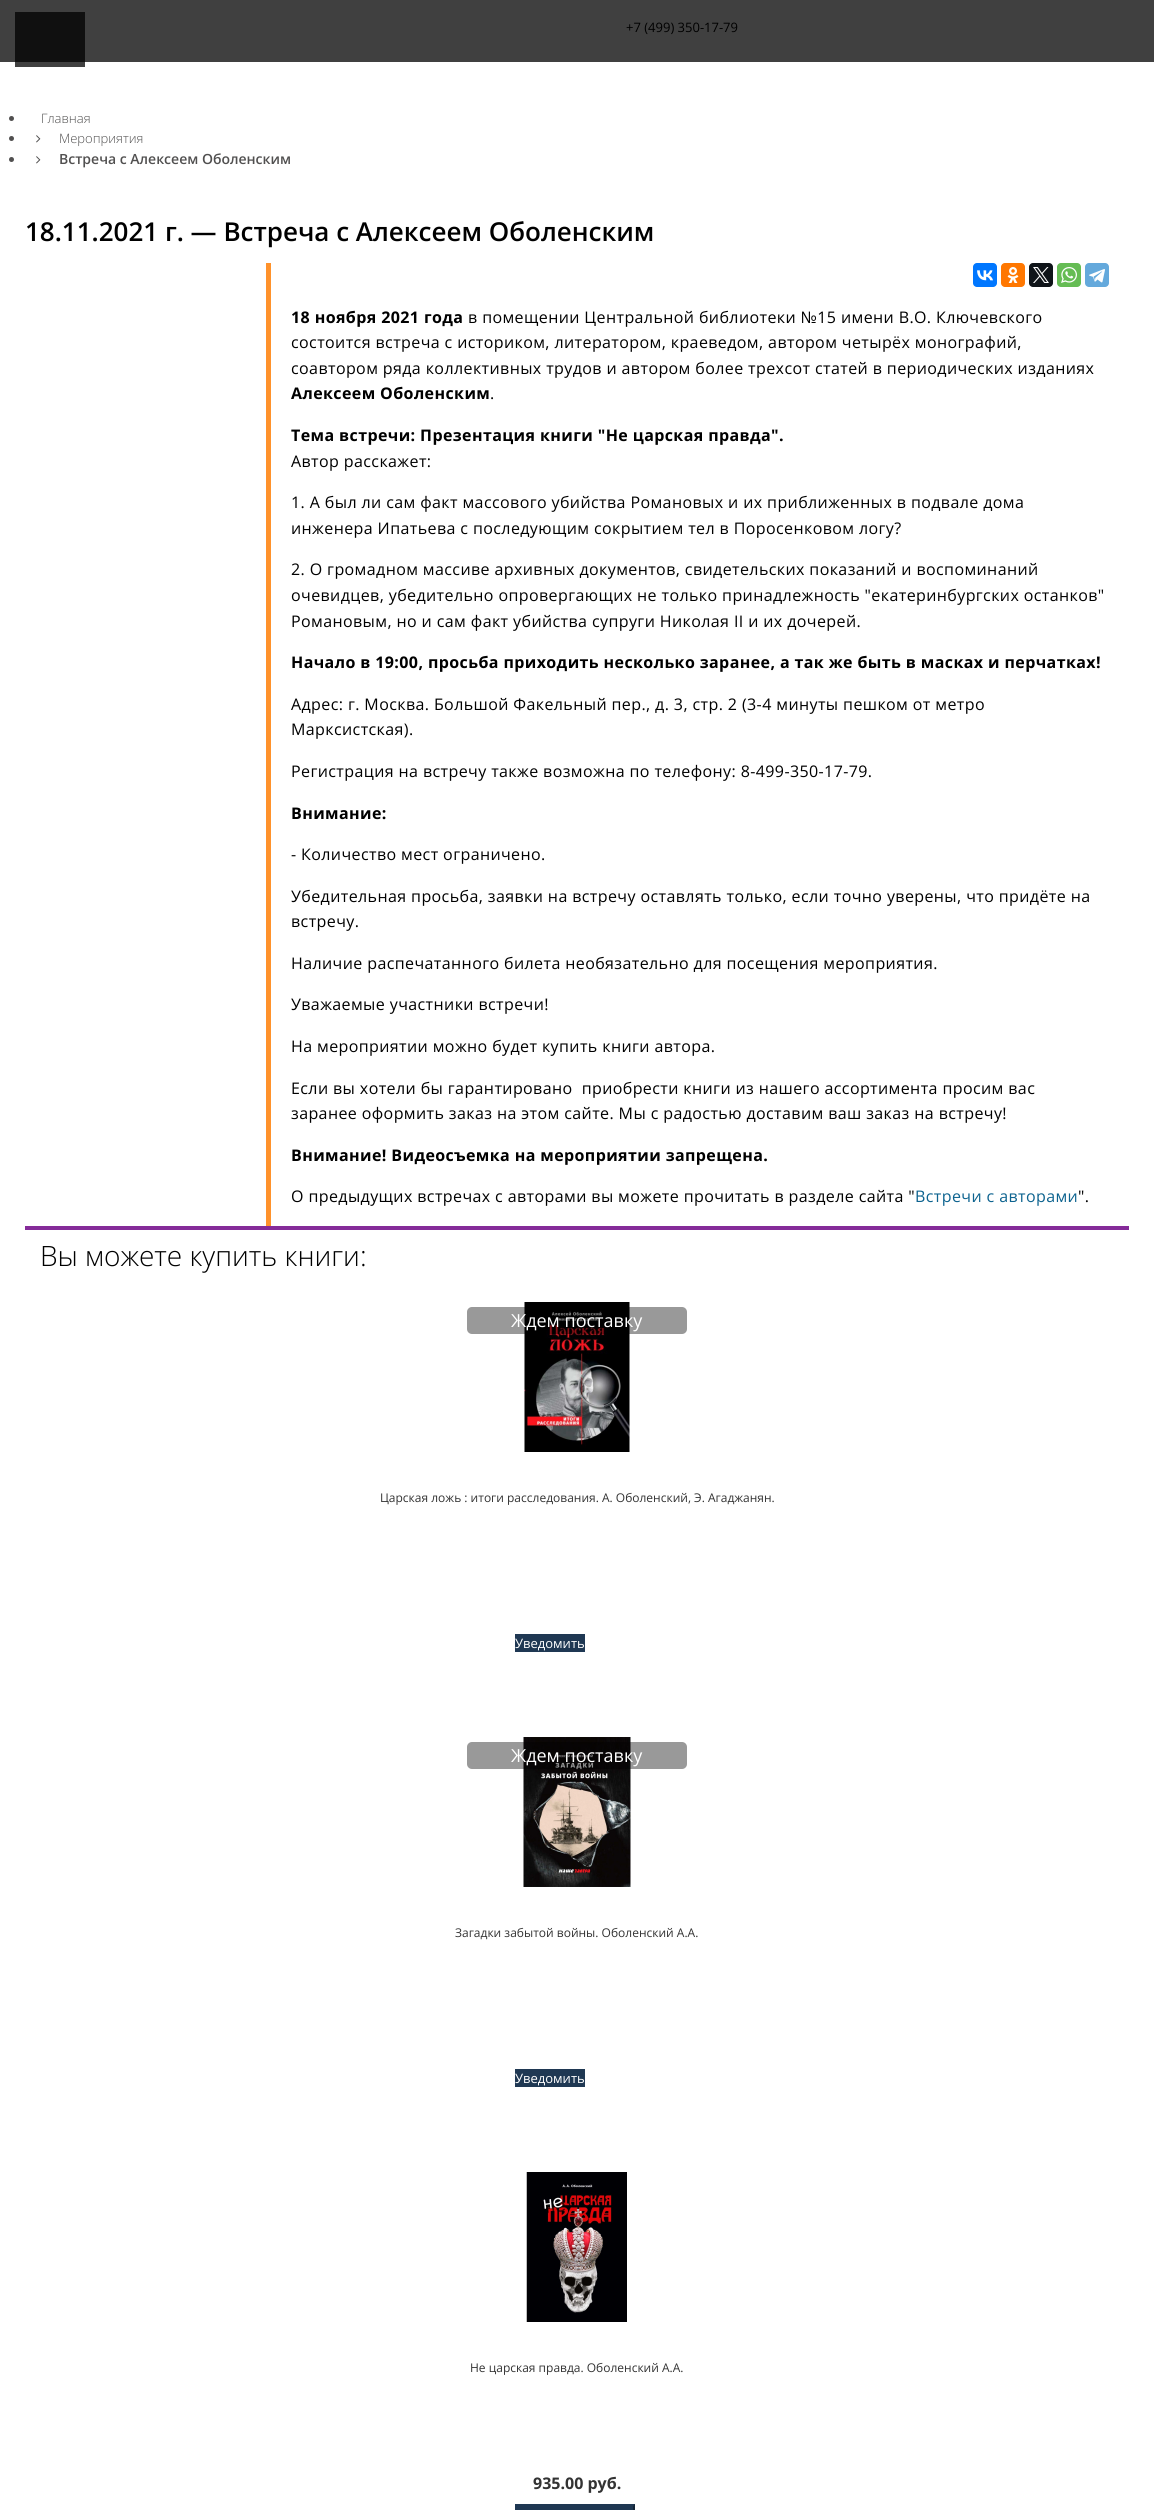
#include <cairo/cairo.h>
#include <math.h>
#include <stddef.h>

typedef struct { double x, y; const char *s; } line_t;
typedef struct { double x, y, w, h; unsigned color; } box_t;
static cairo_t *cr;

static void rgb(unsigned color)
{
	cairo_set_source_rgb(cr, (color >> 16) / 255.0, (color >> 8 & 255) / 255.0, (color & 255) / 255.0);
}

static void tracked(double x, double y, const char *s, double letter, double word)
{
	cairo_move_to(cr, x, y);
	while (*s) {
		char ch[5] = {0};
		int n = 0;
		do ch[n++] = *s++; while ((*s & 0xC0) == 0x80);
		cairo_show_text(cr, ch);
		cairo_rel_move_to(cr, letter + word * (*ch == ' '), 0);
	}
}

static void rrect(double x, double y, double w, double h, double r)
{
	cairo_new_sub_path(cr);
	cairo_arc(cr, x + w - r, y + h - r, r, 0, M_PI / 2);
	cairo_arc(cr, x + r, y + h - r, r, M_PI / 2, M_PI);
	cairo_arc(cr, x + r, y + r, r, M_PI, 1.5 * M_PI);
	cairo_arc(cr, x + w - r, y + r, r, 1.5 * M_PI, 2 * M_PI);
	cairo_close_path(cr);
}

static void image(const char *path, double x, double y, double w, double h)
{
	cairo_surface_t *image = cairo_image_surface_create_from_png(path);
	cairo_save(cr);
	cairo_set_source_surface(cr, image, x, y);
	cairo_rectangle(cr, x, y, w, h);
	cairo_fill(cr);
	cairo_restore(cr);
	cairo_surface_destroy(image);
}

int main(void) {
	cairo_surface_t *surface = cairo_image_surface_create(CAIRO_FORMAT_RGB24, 1154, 2510);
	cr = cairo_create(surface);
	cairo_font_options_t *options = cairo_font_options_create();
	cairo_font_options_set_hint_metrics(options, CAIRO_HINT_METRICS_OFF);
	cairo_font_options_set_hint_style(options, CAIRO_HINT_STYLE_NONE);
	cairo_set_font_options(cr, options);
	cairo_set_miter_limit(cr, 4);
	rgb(0xffffff);
	cairo_paint(cr);
	{
		static const box_t items[] = {
			{0, 0, 1154, 62, 0x404040},
			{15, 12, 70, 50, 0x101010},
			{15, 62, 70, 5, 0x404040},
		};
		for (size_t i = 0; i < sizeof items / sizeof *items; i++) {
			rgb(items[i].color);
			cairo_rectangle(cr, items[i].x, items[i].y, items[i].w, items[i].h);
			cairo_fill(cr);
		}
	}
	rgb(0x515050);
	cairo_arc(cr, 11.5, 118.5, 2.5, 0, 2 * M_PI);
	cairo_fill(cr);
	cairo_arc(cr, 11.5, 138.5, 2.5, 0, 2 * M_PI);
	cairo_fill(cr);
	image("img/1.png", 36, 135, 5, 8);
	cairo_arc(cr, 11.5, 159.5, 2.5, 0, 2 * M_PI);
	cairo_fill(cr);
	image("img/1.png", 36, 156, 5, 8);
	rgb(0xff922b);
	cairo_rectangle(cr, 266, 263, 5, 963);
	cairo_fill(cr);
	rgb(0x0077ff);
	rrect(973, 263, 24, 24, 4);
	cairo_fill(cr);
	image("img/2.png", 977, 270, 16, 11);
	rgb(0xff7700);
	rrect(1001, 263, 24, 24, 4);
	cairo_fill(cr);
	image("img/3.png", 1007, 267, 12, 16);
	rgb(0x0f1419);
	rrect(1029, 263, 24, 24, 4);
	cairo_fill(cr);
	image("img/4.png", 1033, 267, 16, 16);
	rgb(0x65bc54);
	rrect(1057, 263, 24, 24, 4);
	cairo_fill(cr);
	image("img/5.png", 1061, 267, 16, 16);
	rgb(0x64a9dc);
	rrect(1085, 263, 24, 24, 4);
	cairo_fill(cr);
	image("img/6.png", 1089, 269, 16, 14);
	rgb(0x852b99);
	cairo_rectangle(cr, 25, 1226, 1104, 4);
	cairo_fill(cr);
	image("img/7.png", 524, 1302, 106, 150);
	cairo_set_source_rgba(cr, 0, 0, 0, 0.4);
	rrect(467, 1307, 220, 27, 5);
	cairo_fill(cr);
	rgb(0x1f3853);
	cairo_rectangle(cr, 515, 1634, 70, 18);
	cairo_fill(cr);
	image("img/8.png", 523, 1737, 108, 150);
	cairo_set_source_rgba(cr, 0, 0, 0, 0.4);
	rrect(467, 1742, 220, 27, 5);
	cairo_fill(cr);
	rgb(0x1f3853);
	cairo_rectangle(cr, 515, 2069, 70, 18);
	cairo_fill(cr);
	image("img/9.png", 526, 2172, 101, 150);
	cairo_rectangle(cr, 515, 2504, 120, 6);
	cairo_fill(cr);
	rgb(0x152537);
	cairo_new_path(cr);
	cairo_move_to(cr, 635, 2504);
	cairo_line_to(cr, 635, 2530);
	cairo_line_to(cr, 633, 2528);
	cairo_line_to(cr, 633, 2506);
	cairo_close_path(cr);
	cairo_fill(cr);
	cairo_select_font_face(cr, "Open Sans", CAIRO_FONT_SLANT_NORMAL, CAIRO_FONT_WEIGHT_NORMAL);
	cairo_set_font_size(cr, 13);
	rgb(0x000000);
	cairo_move_to(cr, 626, 32);
	cairo_show_text(cr, "+7 (499) 350-17-79");
	cairo_select_font_face(cr, "Open Sans Light", CAIRO_FONT_SLANT_NORMAL, CAIRO_FONT_WEIGHT_NORMAL);
	rgb(0x515050);
	cairo_move_to(cr, 41, 123);
	cairo_show_text(cr, "Главная");
	cairo_move_to(cr, 59, 143);
	cairo_show_text(cr, "Мероприятия");
	cairo_select_font_face(cr, "Open Sans SemiBold", CAIRO_FONT_SLANT_NORMAL, CAIRO_FONT_WEIGHT_NORMAL);
	cairo_set_font_size(cr, 14);
	cairo_move_to(cr, 59, 164);
	cairo_show_text(cr, "Встреча с Алексеем Оболенским");
	cairo_set_font_size(cr, 26);
	rgb(0x000000);
	cairo_move_to(cr, 25, 241);
	cairo_show_text(cr, "18.11.2021 г. — Встреча с Алексеем Оболенским");
	cairo_select_font_face(cr, "Open Sans", CAIRO_FONT_SLANT_NORMAL, CAIRO_FONT_WEIGHT_BOLD);
	cairo_set_font_size(cr, 16);
	tracked(291, 323, "18 ноября 2021 года", 0.4, 0);
	cairo_select_font_face(cr, "Open Sans", CAIRO_FONT_SLANT_NORMAL, CAIRO_FONT_WEIGHT_NORMAL);
	{
		static const line_t items[] = {
			{468, 323, "в помещении Центральной библиотеки №15 имени В.О. Ключевского"},
			{291, 348, "состоится встреча с историком, литератором, краеведом, автором четырёх монографий,"},
			{291, 374, "соавтором ряда коллективных трудов и автором более трехсот статей в периодических изданиях"},
		};
		for (size_t i = 0; i < sizeof items / sizeof *items; i++) {
			tracked(items[i].x, items[i].y, items[i].s, 0.4, 0);
		}
	}
	cairo_select_font_face(cr, "Open Sans", CAIRO_FONT_SLANT_NORMAL, CAIRO_FONT_WEIGHT_BOLD);
	tracked(291, 399, "Алексеем Оболенским", 0.4, 0);
	cairo_select_font_face(cr, "Open Sans", CAIRO_FONT_SLANT_NORMAL, CAIRO_FONT_WEIGHT_NORMAL);
	tracked(490, 399, ".", 0.4, 0);
	cairo_select_font_face(cr, "Open Sans", CAIRO_FONT_SLANT_NORMAL, CAIRO_FONT_WEIGHT_BOLD);
	tracked(291, 441, "Тема встречи: Презентация книги \"Не царская правда\".", 0.4, 0);
	cairo_select_font_face(cr, "Open Sans", CAIRO_FONT_SLANT_NORMAL, CAIRO_FONT_WEIGHT_NORMAL);
	{
		static const line_t items[] = {
			{291, 467, "Автор расскажет:"},
			{291, 508, "1. А был ли сам факт массового убийства Романовых и их приближенных в подвале дома"},
			{291, 534, "инженера Ипатьева с последующим сокрытием тел в Поросенковом логу?"},
			{291, 575, "2. О громадном массиве архивных документов, свидетельских показаний и воспоминаний"},
			{291, 601, "очевидцев, убедительно опровергающих не только принадлежность \"екатеринбургских останков\""},
			{291, 627, "Романовым, но и сам факт убийства супруги Николая II и их дочерей."},
		};
		for (size_t i = 0; i < sizeof items / sizeof *items; i++) {
			tracked(items[i].x, items[i].y, items[i].s, 0.4, 0);
		}
	}
	cairo_select_font_face(cr, "Open Sans", CAIRO_FONT_SLANT_NORMAL, CAIRO_FONT_WEIGHT_BOLD);
	tracked(291, 668, "Начало в 19:00, просьба приходить несколько заранее, а так же быть в масках и перчатках!", 0.4, 0);
	cairo_select_font_face(cr, "Open Sans", CAIRO_FONT_SLANT_NORMAL, CAIRO_FONT_WEIGHT_NORMAL);
	{
		static const line_t items[] = {
			{291, 710, "Адрес: г. Москва. Большой Факельный пер., д. 3, стр. 2 (3-4 минуты пешком от метро"},
			{291, 735, "Марксистская)."},
			{291, 777, "Регистрация на встречу также возможна по телефону: 8-499-350-17-79."},
		};
		for (size_t i = 0; i < sizeof items / sizeof *items; i++) {
			tracked(items[i].x, items[i].y, items[i].s, 0.4, 0);
		}
	}
	cairo_select_font_face(cr, "Open Sans", CAIRO_FONT_SLANT_NORMAL, CAIRO_FONT_WEIGHT_BOLD);
	tracked(291, 819, "Внимание:", 0.4, 0);
	cairo_select_font_face(cr, "Open Sans", CAIRO_FONT_SLANT_NORMAL, CAIRO_FONT_WEIGHT_NORMAL);
	{
		static const line_t items[] = {
			{291, 860, "- Количество мест ограничено."},
			{291, 902, "Убедительная просьба, заявки на встречу оставлять только, если точно уверены, что придёте на"},
			{291, 927, "встречу."},
			{291, 969, "Наличие распечатанного билета необязательно для посещения мероприятия."},
			{291, 1010, "Уважаемые участники встречи!"},
			{291, 1052, "На мероприятии можно будет купить книги автора."},
			{291, 1094, "Если вы хотели бы гарантировано  приобрести книги из нашего ассортимента просим вас"},
			{291, 1119, "заранее оформить заказ на этом сайте. Мы с радостью доставим ваш заказ на встречу!"},
		};
		for (size_t i = 0; i < sizeof items / sizeof *items; i++) {
			tracked(items[i].x, items[i].y, items[i].s, 0.4, 0);
		}
	}
	cairo_select_font_face(cr, "Open Sans", CAIRO_FONT_SLANT_NORMAL, CAIRO_FONT_WEIGHT_BOLD);
	tracked(291, 1161, "Внимание! Видеосъемка на мероприятии запрещена.", 0.4, 0);
	cairo_select_font_face(cr, "Open Sans", CAIRO_FONT_SLANT_NORMAL, CAIRO_FONT_WEIGHT_NORMAL);
	tracked(291, 1202, "О предыдущих встречах с авторами вы можете прочитать в разделе сайта \"", 0.4, 0);
	rgb(0x0d638f);
	tracked(915, 1202, "Встречи с авторами", 0.4, 0);
	rgb(0x000000);
	tracked(1078, 1202, "\".", 0.4, 0);
	cairo_select_font_face(cr, "Open Sans Light", CAIRO_FONT_SLANT_NORMAL, CAIRO_FONT_WEIGHT_NORMAL);
	cairo_set_font_size(cr, 28);
	cairo_move_to(cr, 40, 1266);
	cairo_show_text(cr, "Вы можете купить книги:");
	cairo_select_font_face(cr, "Open Sans", CAIRO_FONT_SLANT_NORMAL, CAIRO_FONT_WEIGHT_NORMAL);
	cairo_set_font_size(cr, 18);
	rgb(0xffffff);
	cairo_move_to(cr, 511, 1327);
	cairo_show_text(cr, "Ждем поставку");
	cairo_set_font_size(cr, 12);
	rgb(0x333333);
	cairo_move_to(cr, 380, 1502);
	cairo_show_text(cr, "Царская ложь : итоги расследования. А. Оболенский, Э. Агаджанян.");
	cairo_set_font_size(cr, 13);
	rgb(0xffffff);
	cairo_move_to(cr, 515, 1648);
	cairo_show_text(cr, "Уведомить");
	cairo_set_font_size(cr, 18);
	cairo_move_to(cr, 511, 1762);
	cairo_show_text(cr, "Ждем поставку");
	cairo_set_font_size(cr, 12);
	rgb(0x333333);
	cairo_move_to(cr, 455, 1937);
	cairo_show_text(cr, "Загадки забытой войны. Оболенский А.А.");
	cairo_set_font_size(cr, 13);
	rgb(0xffffff);
	cairo_move_to(cr, 515, 2083);
	cairo_show_text(cr, "Уведомить");
	cairo_set_font_size(cr, 12);
	rgb(0x333333);
	cairo_move_to(cr, 470, 2372);
	cairo_show_text(cr, "Не царская правда. Оболенский А.А.");
	cairo_select_font_face(cr, "Open Sans", CAIRO_FONT_SLANT_NORMAL, CAIRO_FONT_WEIGHT_BOLD);
	cairo_set_font_size(cr, 16);
	cairo_move_to(cr, 533, 2489);
	cairo_show_text(cr, "935.00 руб.");
	cairo_surface_write_to_png(surface, "page.png");
	cairo_font_options_destroy(options);
	cairo_destroy(cr);
	cairo_surface_destroy(surface);
	return 0;
}
